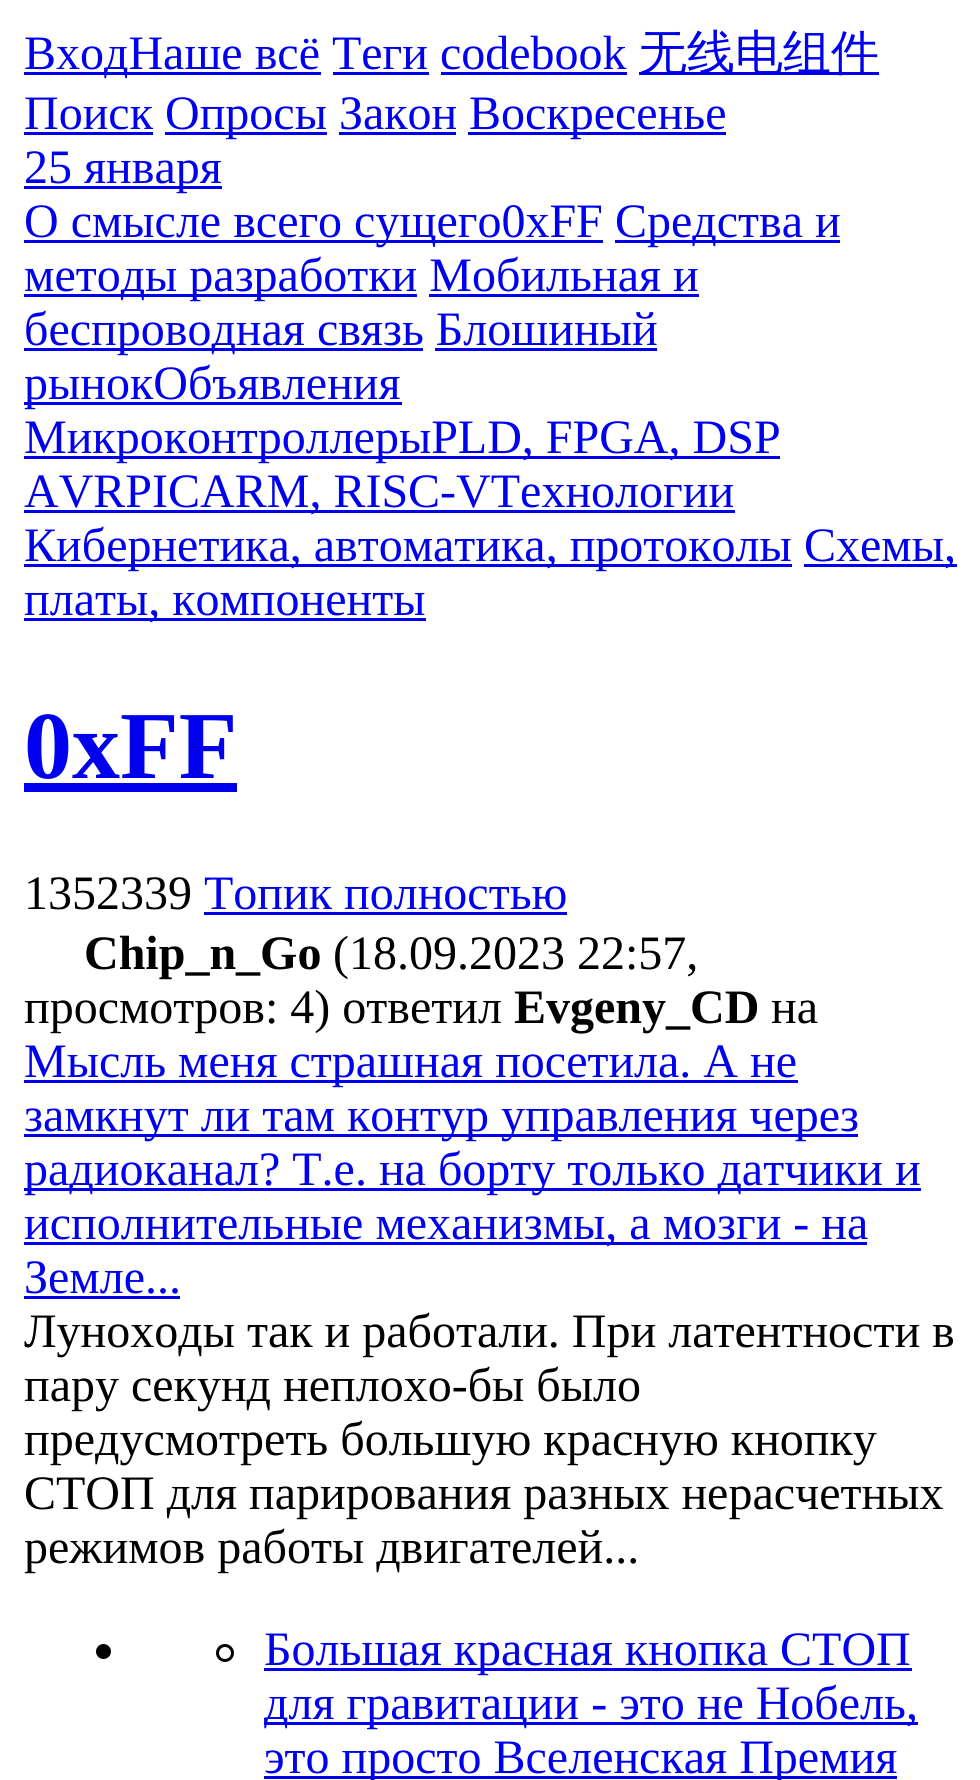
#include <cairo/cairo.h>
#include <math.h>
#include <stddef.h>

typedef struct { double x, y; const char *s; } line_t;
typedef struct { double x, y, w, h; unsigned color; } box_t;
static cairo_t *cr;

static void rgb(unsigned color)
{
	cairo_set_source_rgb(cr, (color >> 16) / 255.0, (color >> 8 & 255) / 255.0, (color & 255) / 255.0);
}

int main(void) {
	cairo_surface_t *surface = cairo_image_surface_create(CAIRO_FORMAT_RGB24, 980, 1780);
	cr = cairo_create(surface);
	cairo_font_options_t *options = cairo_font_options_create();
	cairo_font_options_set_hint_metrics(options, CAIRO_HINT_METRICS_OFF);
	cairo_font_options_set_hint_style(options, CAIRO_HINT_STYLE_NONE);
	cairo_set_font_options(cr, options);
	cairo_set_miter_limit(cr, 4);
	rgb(0xffffff);
	cairo_paint(cr);
	{
		static const box_t items[] = {
			{24, 72, 297, 3, 0x0000ee},
			{639, 72, 240, 3, 0x0000ee},
			{333, 72, 96, 3, 0x0000ee},
			{441, 72, 186, 3, 0x0000ee},
			{24, 132, 129, 3, 0x0000ee},
			{165, 132, 162, 3, 0x0000ee},
			{468, 132, 258, 3, 0x0000ee},
			{339, 132, 117, 3, 0x0000ee},
			{24, 186, 198, 3, 0x0000ee},
			{24, 240, 579, 3, 0x0000ee},
			{615, 240, 225, 3, 0x0000ee},
			{24, 294, 393, 3, 0x0000ee},
			{429, 294, 270, 3, 0x0000ee},
			{24, 348, 399, 3, 0x0000ee},
			{435, 348, 222, 3, 0x0000ee},
			{24, 402, 129, 3, 0x0000ee},
			{153, 402, 249, 3, 0x0000ee},
			{24, 456, 756, 3, 0x0000ee},
			{24, 510, 711, 3, 0x0000ee},
			{24, 564, 768, 3, 0x0000ee},
			{804, 564, 153, 3, 0x0000ee},
			{24, 618, 402, 3, 0x0000ee},
			{24, 783, 213, 9, 0x0000ee},
			{204, 912, 363, 3, 0x0000ee},
			{24, 1080, 774, 3, 0x0000ee},
			{24, 1134, 834, 3, 0x0000ee},
			{24, 1188, 897, 3, 0x0000ee},
			{24, 1242, 843, 3, 0x0000ee},
			{24, 1296, 156, 3, 0x0000ee},
		};
		for (size_t i = 0; i < sizeof items / sizeof *items; i++) {
			rgb(items[i].color);
			cairo_rectangle(cr, items[i].x, items[i].y, items[i].w, items[i].h);
			cairo_fill(cr);
		}
	}
	rgb(0x000000);
	cairo_arc(cr, 103.5, 1651.5, 7.5, 0, 2 * M_PI);
	cairo_fill(cr);
	cairo_arc(cr, 225, 1653, 7.5, 0, 2 * M_PI);
	cairo_set_line_width(cr, 3);
	cairo_stroke(cr);
	{
		static const box_t items[] = {
			{264, 1668, 648, 3, 0x0000ee},
			{264, 1722, 654, 3, 0x0000ee},
			{264, 1776, 633, 3, 0x0000ee},
		};
		for (size_t i = 0; i < sizeof items / sizeof *items; i++) {
			rgb(items[i].color);
			cairo_rectangle(cr, items[i].x, items[i].y, items[i].w, items[i].h);
			cairo_fill(cr);
		}
	}
	cairo_select_font_face(cr, "Liberation Serif", CAIRO_FONT_SLANT_NORMAL, CAIRO_FONT_WEIGHT_NORMAL);
	cairo_set_font_size(cr, 48);
	cairo_move_to(cr, 24, 69);
	cairo_show_text(cr, "ВходНаше всё Теги codebook");
	cairo_select_font_face(cr, "WenQuanYi Zen Hei Medium", CAIRO_FONT_SLANT_NORMAL, CAIRO_FONT_WEIGHT_NORMAL);
	cairo_move_to(cr, 639, 69);
	cairo_show_text(cr, "无线电组件");
	cairo_select_font_face(cr, "Liberation Serif", CAIRO_FONT_SLANT_NORMAL, CAIRO_FONT_WEIGHT_NORMAL);
	{
		static const line_t items[] = {
			{24, 129, "Поиск"},
			{165, 129, "Опросы Закон"},
			{469, 129, "Воскресенье"},
			{24, 183, "25 января"},
			{24, 237, "О смысле всего сущего0xFF"},
			{615, 237, "Средства и"},
			{24, 291, "методы разработки Мобильная и"},
			{24, 345, "беспроводная связь Блошиный"},
			{24, 399, "рынокОбъявления"},
			{24, 453, "МикроконтроллерыPLD, FPGA, DSP"},
			{24, 507, "AVRPICARM, RISC-VТехнологии"},
			{24, 561, "Кибернетика, автоматика, протоколы"},
			{804, 561, "Схемы,"},
			{24, 615, "платы, компоненты"},
		};
		for (size_t i = 0; i < sizeof items / sizeof *items; i++) {
			cairo_move_to(cr, items[i].x, items[i].y);
			cairo_show_text(cr, items[i].s);
		}
	}
	cairo_select_font_face(cr, "Liberation Serif", CAIRO_FONT_SLANT_NORMAL, CAIRO_FONT_WEIGHT_BOLD);
	cairo_set_font_size(cr, 96);
	cairo_move_to(cr, 24, 778);
	cairo_show_text(cr, "0xFF");
	cairo_select_font_face(cr, "Liberation Serif", CAIRO_FONT_SLANT_NORMAL, CAIRO_FONT_WEIGHT_NORMAL);
	cairo_set_font_size(cr, 48);
	rgb(0x000000);
	cairo_move_to(cr, 24, 909);
	cairo_show_text(cr, "1352339");
	rgb(0x0000ee);
	cairo_move_to(cr, 204, 909);
	cairo_show_text(cr, "Топик полностью");
	cairo_select_font_face(cr, "Liberation Serif", CAIRO_FONT_SLANT_NORMAL, CAIRO_FONT_WEIGHT_BOLD);
	rgb(0x000000);
	cairo_move_to(cr, 84, 969);
	cairo_show_text(cr, "Chip_n_Go");
	cairo_select_font_face(cr, "Liberation Serif", CAIRO_FONT_SLANT_NORMAL, CAIRO_FONT_WEIGHT_NORMAL);
	cairo_move_to(cr, 333, 969);
	cairo_show_text(cr, "(18.09.2023 22:57,");
	cairo_move_to(cr, 24, 1023);
	cairo_show_text(cr, "просмотров: 4) ответил");
	cairo_select_font_face(cr, "Liberation Serif", CAIRO_FONT_SLANT_NORMAL, CAIRO_FONT_WEIGHT_BOLD);
	cairo_move_to(cr, 514, 1023);
	cairo_show_text(cr, "Evgeny_CD");
	cairo_select_font_face(cr, "Liberation Serif", CAIRO_FONT_SLANT_NORMAL, CAIRO_FONT_WEIGHT_NORMAL);
	cairo_move_to(cr, 771, 1023);
	cairo_show_text(cr, "на");
	rgb(0x0000ee);
	{
		static const line_t items[] = {
			{24, 1077, "Мысль меня страшная посетила. А не"},
			{24, 1131, "замкнут ли там контур управления через"},
			{24, 1185, "радиоканал? Т.е. на борту только датчики и"},
			{24, 1239, "исполнительные механизмы, а мозги - на"},
			{24, 1293, "Земле..."},
		};
		for (size_t i = 0; i < sizeof items / sizeof *items; i++) {
			cairo_move_to(cr, items[i].x, items[i].y);
			cairo_show_text(cr, items[i].s);
		}
	}
	rgb(0x000000);
	{
		static const line_t items[] = {
			{24, 1347, "Луноходы так и работали. При латентности в"},
			{24, 1401, "пару секунд неплохо-бы было"},
			{24, 1455, "предусмотреть большую красную кнопку"},
			{24, 1509, "СТОП для парирования разных нерасчетных"},
			{24, 1563, "режимов работы двигателей..."},
		};
		for (size_t i = 0; i < sizeof items / sizeof *items; i++) {
			cairo_move_to(cr, items[i].x, items[i].y);
			cairo_show_text(cr, items[i].s);
		}
	}
	rgb(0x0000ee);
	{
		static const line_t items[] = {
			{264, 1665, "Большая красная кнопка СТОП"},
			{264, 1719, "для гравитации - это не Нобель,"},
			{264, 1773, "это просто Вселенская Премия"},
		};
		for (size_t i = 0; i < sizeof items / sizeof *items; i++) {
			cairo_move_to(cr, items[i].x, items[i].y);
			cairo_show_text(cr, items[i].s);
		}
	}
	cairo_surface_write_to_png(surface, "page.png");
	cairo_font_options_destroy(options);
	cairo_destroy(cr);
	cairo_surface_destroy(surface);
	return 0;
}
